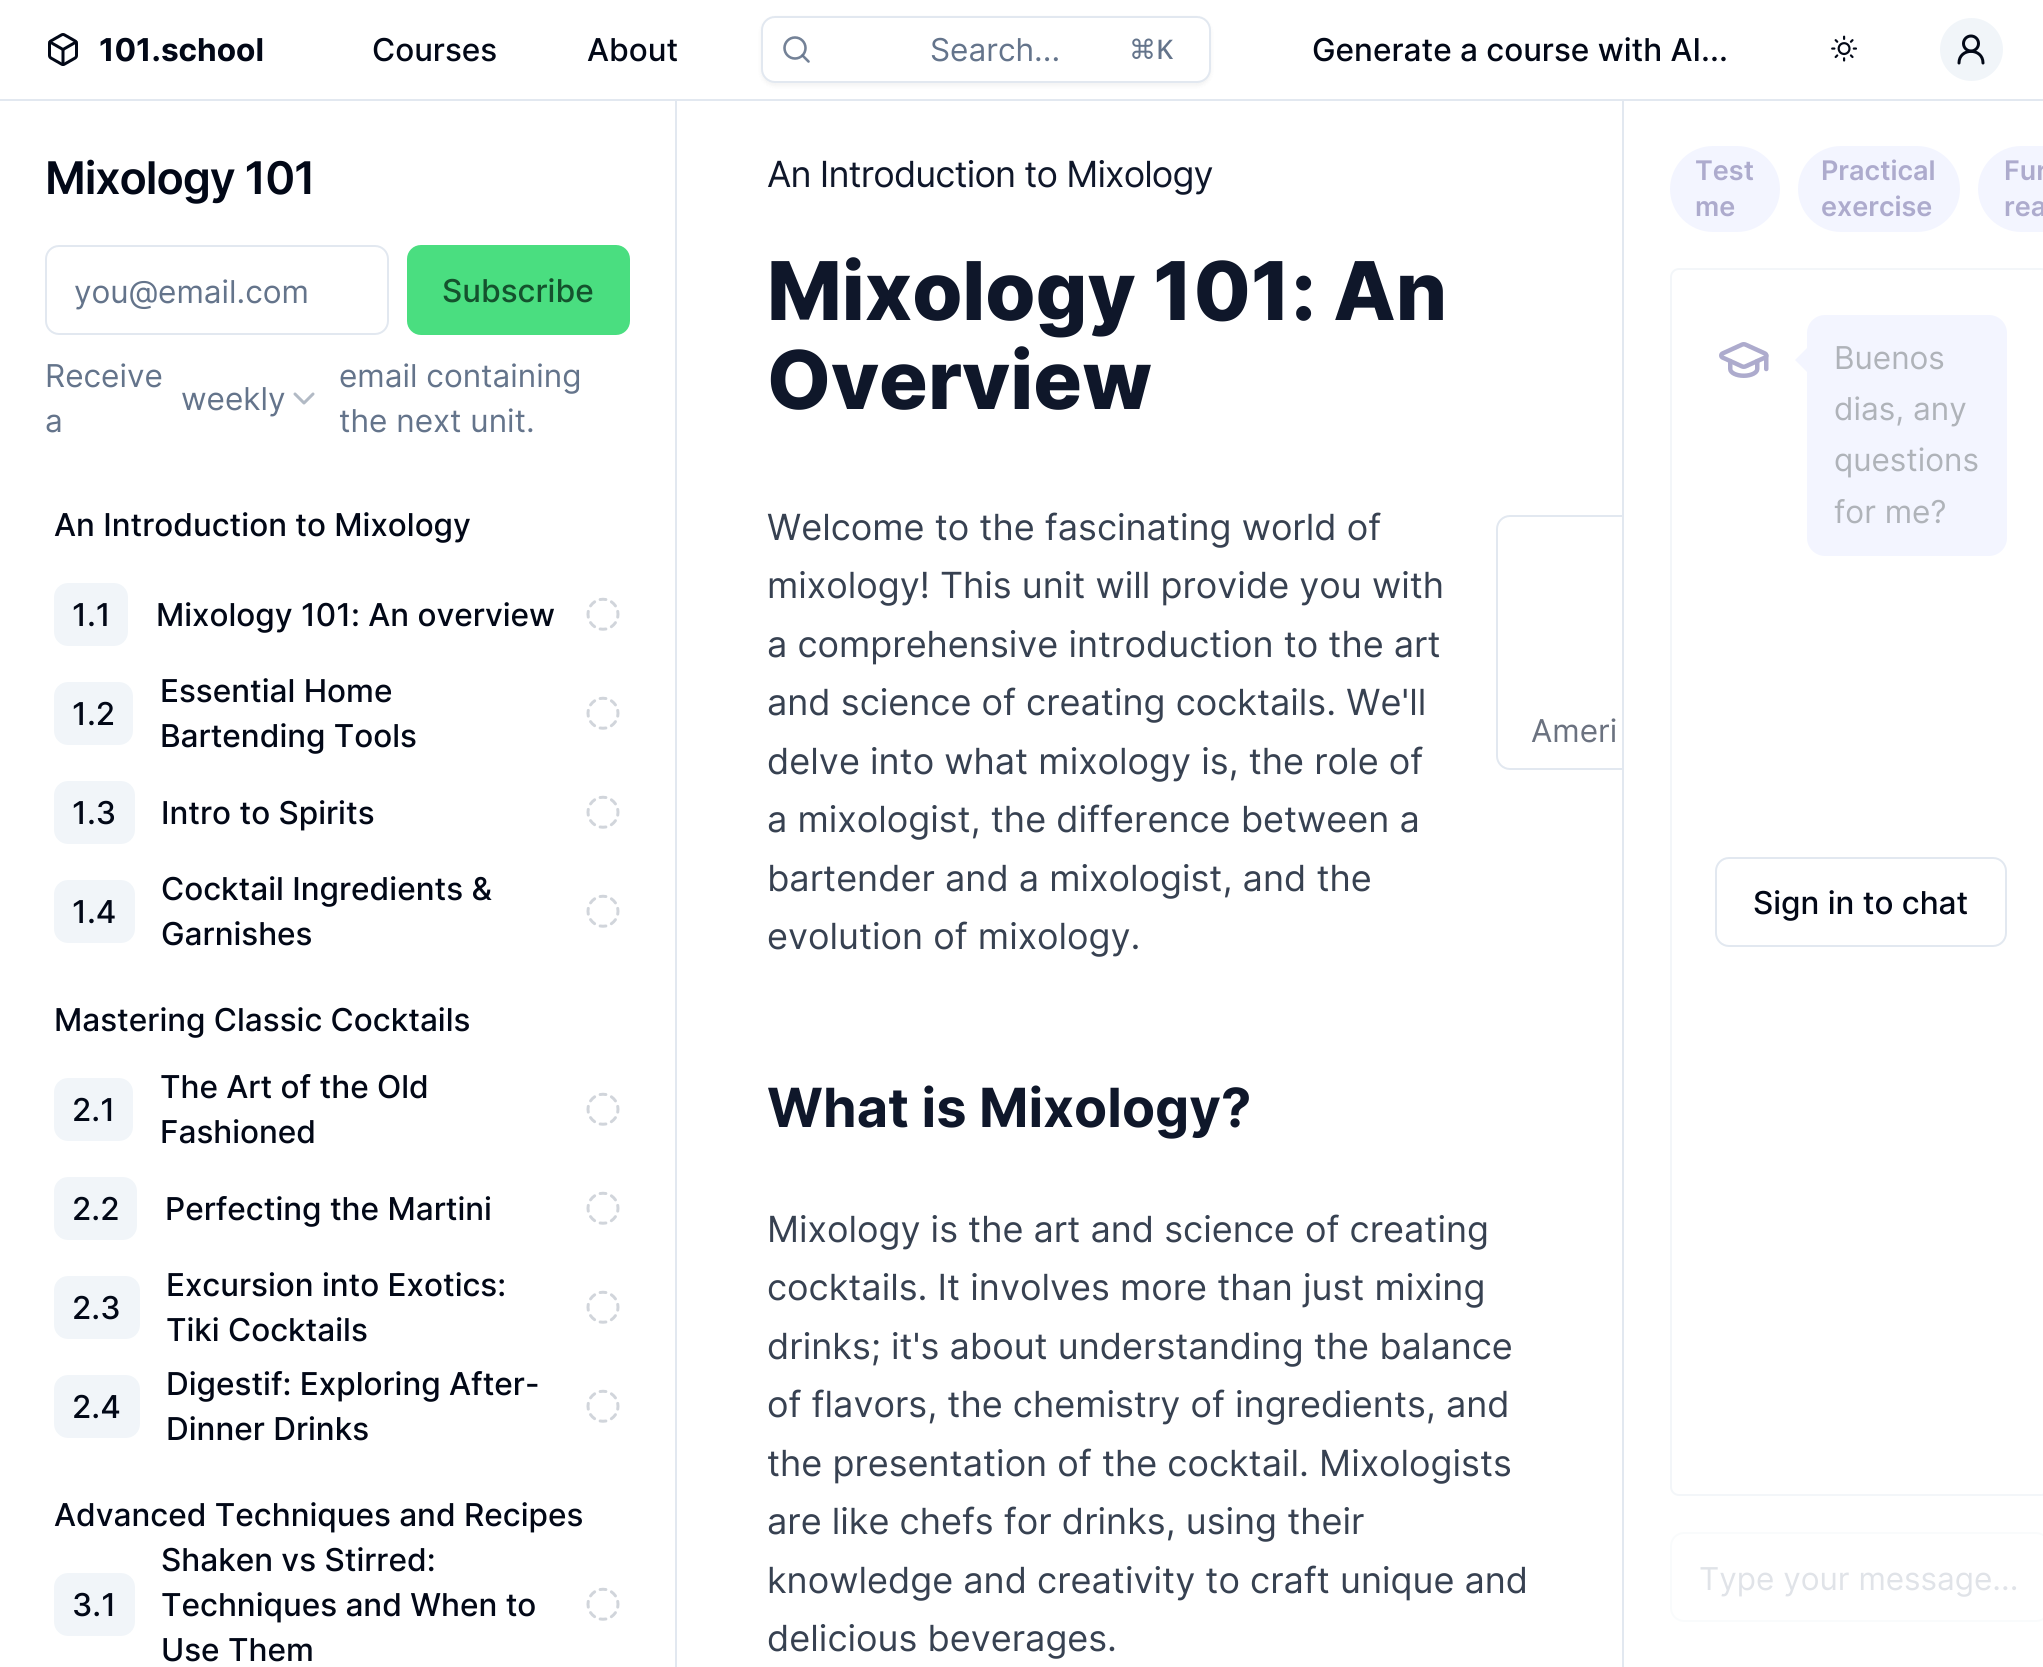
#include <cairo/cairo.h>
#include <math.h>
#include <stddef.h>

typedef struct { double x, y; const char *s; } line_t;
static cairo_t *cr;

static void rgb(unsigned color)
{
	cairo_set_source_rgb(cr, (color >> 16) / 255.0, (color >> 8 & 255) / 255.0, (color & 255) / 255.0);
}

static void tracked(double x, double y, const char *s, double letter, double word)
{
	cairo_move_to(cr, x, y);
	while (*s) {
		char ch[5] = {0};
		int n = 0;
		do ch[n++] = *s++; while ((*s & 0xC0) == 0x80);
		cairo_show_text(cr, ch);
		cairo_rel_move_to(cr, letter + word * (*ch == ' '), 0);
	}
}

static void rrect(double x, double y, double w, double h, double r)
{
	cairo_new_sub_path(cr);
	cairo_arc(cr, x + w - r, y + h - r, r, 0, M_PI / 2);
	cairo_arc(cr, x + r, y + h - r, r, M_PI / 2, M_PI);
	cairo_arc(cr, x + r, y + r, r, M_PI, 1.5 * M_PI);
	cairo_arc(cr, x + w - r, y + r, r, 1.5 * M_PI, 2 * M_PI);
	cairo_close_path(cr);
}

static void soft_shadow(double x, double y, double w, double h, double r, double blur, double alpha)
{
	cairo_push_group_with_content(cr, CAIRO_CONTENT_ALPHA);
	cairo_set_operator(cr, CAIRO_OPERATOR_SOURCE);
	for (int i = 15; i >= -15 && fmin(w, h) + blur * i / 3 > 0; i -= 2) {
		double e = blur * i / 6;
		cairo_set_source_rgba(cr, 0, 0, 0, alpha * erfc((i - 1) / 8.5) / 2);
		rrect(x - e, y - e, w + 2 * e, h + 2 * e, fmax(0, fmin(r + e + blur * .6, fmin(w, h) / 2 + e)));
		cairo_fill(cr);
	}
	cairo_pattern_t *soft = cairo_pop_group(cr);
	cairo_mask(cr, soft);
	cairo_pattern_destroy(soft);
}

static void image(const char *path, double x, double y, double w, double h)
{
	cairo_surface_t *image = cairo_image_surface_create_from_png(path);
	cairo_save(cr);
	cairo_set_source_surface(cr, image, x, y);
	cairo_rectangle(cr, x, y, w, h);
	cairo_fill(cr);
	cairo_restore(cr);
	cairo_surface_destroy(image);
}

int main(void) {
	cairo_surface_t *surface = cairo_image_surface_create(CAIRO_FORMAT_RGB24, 2043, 1667);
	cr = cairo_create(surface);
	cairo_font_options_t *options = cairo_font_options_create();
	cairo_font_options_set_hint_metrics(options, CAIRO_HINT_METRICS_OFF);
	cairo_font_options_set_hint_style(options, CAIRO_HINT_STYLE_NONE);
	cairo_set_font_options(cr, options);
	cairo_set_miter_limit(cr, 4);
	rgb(0xffffff);
	cairo_paint(cr);
	rgb(0xe2e8f0);
	cairo_rectangle(cr, 0, 99, 2043, 2);
	cairo_fill(cr);
	image("img/1.png", 48, 33, 30, 33);
	rgb(0x000000);
	soft_shadow(761, 18, 450, 68, 14, 2, 0.05);
	rgb(0xffffff);
	rrect(762, 17, 448, 65, 13);
	cairo_fill_preserve(cr);
	rgb(0xe2e8f0);
	cairo_stroke(cr);
	cairo_arc(cr, 795, 48, 10.5, 0, 2 * M_PI);
	rgb(0x748297);
	cairo_set_line_width(cr, 2.6);
	cairo_stroke(cr);
	cairo_new_path(cr);
	cairo_move_to(cr, 808.5, 61.5);
	cairo_line_to(cr, 802.5, 55.5);
	cairo_set_source_rgba(cr, 0.392, 0.455, 0.545, 0.9);
	cairo_set_line_cap(cr, CAIRO_LINE_CAP_ROUND);
	cairo_set_line_join(cr, CAIRO_LINE_JOIN_ROUND);
	cairo_stroke(cr);
	image("img/2.png", 1831, 35, 26, 27);
	rgb(0xf1f5f9);
	cairo_arc(cr, 1971.5, 49.5, 31.5, 0, 2 * M_PI);
	cairo_fill(cr);
	cairo_arc(cr, 1971, 43.5, 7.5, 0, 2 * M_PI);
	rgb(0x020817);
	cairo_set_line_width(cr, 3);
	cairo_set_line_cap(cr, CAIRO_LINE_CAP_BUTT);
	cairo_set_line_join(cr, CAIRO_LINE_JOIN_MITER);
	cairo_stroke(cr);
	cairo_new_path(cr);
	cairo_move_to(cr, 1983, 63);
	cairo_curve_to(cr, 1983, 47.5, 1959, 47.5, 1959, 63);
	cairo_set_line_cap(cr, CAIRO_LINE_CAP_ROUND);
	cairo_set_line_join(cr, CAIRO_LINE_JOIN_ROUND);
	cairo_stroke(cr);
	rrect(46, 246, 342, 88, 13);
	rgb(0xe2e8f0);
	cairo_set_line_width(cr, 2);
	cairo_set_line_cap(cr, CAIRO_LINE_CAP_BUTT);
	cairo_set_line_join(cr, CAIRO_LINE_JOIN_MITER);
	cairo_stroke(cr);
	rgb(0x4ade80);
	rrect(407, 245, 223, 90, 14);
	cairo_fill(cr);
	cairo_new_path(cr);
	cairo_move_to(cr, 295, 394);
	cairo_line_to(cr, 304, 403);
	cairo_line_to(cr, 313, 394);
	rgb(0xb2bac5);
	cairo_set_line_width(cr, 3);
	cairo_set_line_cap(cr, CAIRO_LINE_CAP_ROUND);
	cairo_set_line_join(cr, CAIRO_LINE_JOIN_ROUND);
	cairo_stroke(cr);
	rgb(0xf1f5f9);
	rrect(54, 583, 74, 63, 14);
	cairo_fill(cr);
	image("img/3.png", 586, 597, 34, 34);
	rrect(54, 682, 79, 63, 14);
	cairo_fill(cr);
	image("img/3.png", 586, 696, 34, 34);
	rrect(54, 781, 81, 63, 14);
	cairo_fill(cr);
	image("img/3.png", 586, 795, 34, 34);
	rrect(54, 880, 81, 63, 14);
	cairo_fill(cr);
	image("img/3.png", 586, 894, 34, 34);
	rrect(54, 1078, 79, 63, 14);
	cairo_fill(cr);
	image("img/3.png", 586, 1092, 34, 34);
	rrect(54, 1177, 83, 63, 14);
	cairo_fill(cr);
	image("img/3.png", 586, 1191, 34, 34);
	rrect(54, 1276, 86, 63, 14);
	cairo_fill(cr);
	image("img/3.png", 586, 1290, 34, 34);
	rrect(54, 1375, 86, 63, 14);
	cairo_fill(cr);
	image("img/3.png", 586, 1389, 34, 34);
	rrect(54, 1573, 81, 63, 14);
	cairo_fill(cr);
	image("img/3.png", 586, 1587, 34, 34);
	rgb(0xe2e8f0);
	cairo_rectangle(cr, 675, 101, 2, 1566);
	cairo_fill(cr);
	cairo_rectangle(cr, 1622, 101, 2, 1566);
	cairo_fill(cr);
	cairo_save(cr);
	cairo_rectangle(cr, 677, 101, 945, 1566);
	cairo_clip(cr);
	rrect(1497, 516, 322, 253, 13);
	cairo_set_line_width(cr, 2);
	cairo_set_line_cap(cr, CAIRO_LINE_CAP_BUTT);
	cairo_set_line_join(cr, CAIRO_LINE_JOIN_MITER);
	cairo_stroke(cr);
	cairo_restore(cr);
	rgb(0xf3f5ff);
	rrect(1670, 146, 110, 86, 43);
	cairo_fill(cr);
	rrect(1798, 146, 162, 86, 43);
	cairo_fill(cr);
	cairo_new_path(cr);
	cairo_move_to(cr, 2021, 146);
	cairo_line_to(cr, 2043, 146);
	cairo_line_to(cr, 2043, 232);
	cairo_line_to(cr, 2021, 232);
	cairo_curve_to(cr, 1997.5, 232, 1978, 212.5, 1978, 189);
	cairo_curve_to(cr, 1978, 165.5, 1997.5, 146, 2021, 146);
	cairo_close_path(cr);
	cairo_fill(cr);
	rrect(1671, 269, 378, 1226, 8);
	rgb(0xf3f6f9);
	cairo_set_line_width(cr, 2);
	cairo_set_line_cap(cr, CAIRO_LINE_CAP_BUTT);
	cairo_set_line_join(cr, CAIRO_LINE_JOIN_MITER);
	cairo_stroke(cr);
	image("img/4.png", 1719, 342, 50, 36);
	rgb(0xf3f5ff);
	rrect(1807, 315, 200, 241, 18);
	cairo_fill(cr);
	cairo_new_path(cr);
	cairo_move_to(cr, 1807.5, 347.5);
	cairo_line_to(cr, 1820, 360);
	cairo_line_to(cr, 1807.5, 372.5);
	cairo_line_to(cr, 1795, 360);
	cairo_close_path(cr);
	cairo_fill(cr);
	rrect(1716, 858, 290, 88, 13);
	rgb(0xe2e8f0);
	cairo_stroke(cr);
	rrect(1671, 1533, 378, 88, 13);
	rgb(0xf9fbfc);
	cairo_stroke(cr);
	cairo_select_font_face(cr, "Inter", CAIRO_FONT_SLANT_NORMAL, CAIRO_FONT_WEIGHT_BOLD);
	cairo_set_font_size(cr, 31.5);
	rgb(0x020817);
	cairo_move_to(cr, 99, 61);
	cairo_show_text(cr, "101.school");
	cairo_select_font_face(cr, "Inter Medium", CAIRO_FONT_SLANT_NORMAL, CAIRO_FONT_WEIGHT_NORMAL);
	cairo_move_to(cr, 372, 61);
	cairo_show_text(cr, "Courses");
	cairo_move_to(cr, 587, 61);
	cairo_show_text(cr, "About");
	cairo_select_font_face(cr, "Inter", CAIRO_FONT_SLANT_NORMAL, CAIRO_FONT_WEIGHT_NORMAL);
	rgb(0x64748b);
	cairo_move_to(cr, 930, 61);
	cairo_show_text(cr, "Search...");
	cairo_select_font_face(cr, "DejaVu Sans", CAIRO_FONT_SLANT_NORMAL, CAIRO_FONT_WEIGHT_NORMAL);
	cairo_set_font_size(cr, 27);
	cairo_move_to(cr, 1129, 59);
	cairo_show_text(cr, "⌘");
	cairo_select_font_face(cr, "Noto Sans Medium", CAIRO_FONT_SLANT_NORMAL, CAIRO_FONT_WEIGHT_NORMAL);
	cairo_move_to(cr, 1156, 59);
	cairo_show_text(cr, "K");
	cairo_select_font_face(cr, "Inter Medium", CAIRO_FONT_SLANT_NORMAL, CAIRO_FONT_WEIGHT_NORMAL);
	cairo_set_font_size(cr, 31.5);
	rgb(0x020817);
	cairo_move_to(cr, 1312, 61);
	cairo_show_text(cr, "Generate a course with AI...");
	cairo_select_font_face(cr, "Inter SemiBold", CAIRO_FONT_SLANT_NORMAL, CAIRO_FONT_WEIGHT_NORMAL);
	cairo_set_font_size(cr, 45);
	tracked(45, 194, "Mixology 101", -1.1, 0);
	cairo_select_font_face(cr, "Inter", CAIRO_FONT_SLANT_NORMAL, CAIRO_FONT_WEIGHT_NORMAL);
	cairo_set_font_size(cr, 31.5);
	rgb(0x64748b);
	cairo_move_to(cr, 74, 303);
	cairo_show_text(cr, "you@email.com");
	cairo_select_font_face(cr, "Inter Medium", CAIRO_FONT_SLANT_NORMAL, CAIRO_FONT_WEIGHT_NORMAL);
	rgb(0x14522d);
	cairo_move_to(cr, 442, 302);
	cairo_show_text(cr, "Subscribe");
	cairo_select_font_face(cr, "Inter", CAIRO_FONT_SLANT_NORMAL, CAIRO_FONT_WEIGHT_NORMAL);
	rgb(0x64748b);
	{
		static const line_t items[] = {
			{45, 387, "Receive"},
			{45, 432, "a"},
			{181, 410, "weekly"},
			{339, 387, "email containing"},
			{339, 432, "the next unit."},
		};
		for (size_t i = 0; i < sizeof items / sizeof *items; i++) {
			cairo_move_to(cr, items[i].x, items[i].y);
			cairo_show_text(cr, items[i].s);
		}
	}
	cairo_select_font_face(cr, "Inter Medium", CAIRO_FONT_SLANT_NORMAL, CAIRO_FONT_WEIGHT_NORMAL);
	rgb(0x020817);
	{
		static const line_t items[] = {
			{54, 536, "An Introduction to Mixology"},
			{72, 626, "1.1"},
			{156, 626, "Mixology 101: An overview"},
			{72, 725, "1.2"},
			{160, 702, "Essential Home"},
			{160, 747, "Bartending Tools"},
			{72, 824, "1.3"},
			{161, 824, "Intro to Spirits"},
			{72, 923, "1.4"},
			{161, 900, "Cocktail Ingredients &"},
			{161, 945, "Garnishes"},
			{54, 1031, "Mastering Classic Cocktails"},
			{72, 1121, "2.1"},
			{160, 1098, "The Art of the Old"},
			{160, 1143, "Fashioned"},
			{72, 1220, "2.2"},
			{165, 1220, "Perfecting the Martini"},
			{72, 1319, "2.3"},
			{166, 1296, "Excursion into Exotics:"},
			{166, 1341, "Tiki Cocktails"},
			{72, 1418, "2.4"},
			{166, 1395, "Digestif: Exploring After-"},
			{166, 1440, "Dinner Drinks"},
			{54, 1526, "Advanced Techniques and Recipes"},
			{72, 1616, "3.1"},
			{161, 1571, "Shaken vs Stirred:"},
			{161, 1616, "Techniques and When to"},
			{161, 1661, "Use Them"},
		};
		for (size_t i = 0; i < sizeof items / sizeof *items; i++) {
			cairo_move_to(cr, items[i].x, items[i].y);
			cairo_show_text(cr, items[i].s);
		}
	}
	cairo_select_font_face(cr, "Inter", CAIRO_FONT_SLANT_NORMAL, CAIRO_FONT_WEIGHT_NORMAL);
	cairo_set_font_size(cr, 36);
	rgb(0x0f172a);
	tracked(767, 187, "An Introduction to Mixology", -0.9, 0);
	cairo_select_font_face(cr, "Inter ExtraBold", CAIRO_FONT_SLANT_NORMAL, CAIRO_FONT_WEIGHT_NORMAL);
	cairo_set_font_size(cr, 81);
	cairo_move_to(cr, 767, 320);
	cairo_show_text(cr, "Mixology 101: An");
	cairo_move_to(cr, 767, 409);
	cairo_show_text(cr, "Overview");
	cairo_select_font_face(cr, "Inter", CAIRO_FONT_SLANT_NORMAL, CAIRO_FONT_WEIGHT_NORMAL);
	cairo_set_font_size(cr, 36);
	rgb(0x374151);
	{
		static const line_t items[] = {
			{767, 540, "Welcome to the fascinating world of"},
			{767, 598, "mixology! This unit will provide you with"},
			{767, 657, "a comprehensive introduction to the art"},
			{767, 715, "and science of creating cocktails. We'll"},
			{767, 774, "delve into what mixology is, the role of"},
			{767, 832, "a mixologist, the difference between a"},
			{767, 891, "bartender and a mixologist, and the"},
			{767, 949, "evolution of mixology."},
		};
		for (size_t i = 0; i < sizeof items / sizeof *items; i++) {
			cairo_move_to(cr, items[i].x, items[i].y);
			cairo_show_text(cr, items[i].s);
		}
	}
	cairo_set_font_size(cr, 31.5);
	rgb(0x6b7280);
	cairo_move_to(cr, 1531, 742);
	cairo_show_text(cr, "Ameri");
	cairo_select_font_face(cr, "Inter", CAIRO_FONT_SLANT_NORMAL, CAIRO_FONT_WEIGHT_BOLD);
	cairo_set_font_size(cr, 54);
	rgb(0x0f172a);
	cairo_move_to(cr, 767, 1127);
	cairo_show_text(cr, "What is Mixology?");
	cairo_select_font_face(cr, "Inter", CAIRO_FONT_SLANT_NORMAL, CAIRO_FONT_WEIGHT_NORMAL);
	cairo_set_font_size(cr, 36);
	rgb(0x374151);
	{
		static const line_t items[] = {
			{767, 1242, "Mixology is the art and science of creating"},
			{767, 1300, "cocktails. It involves more than just mixing"},
			{767, 1359, "drinks; it's about understanding the balance"},
			{767, 1417, "of flavors, the chemistry of ingredients, and"},
			{767, 1476, "the presentation of the cocktail. Mixologists"},
			{767, 1534, "are like chefs for drinks, using their"},
			{767, 1593, "knowledge and creativity to craft unique and"},
			{767, 1651, "delicious beverages."},
		};
		for (size_t i = 0; i < sizeof items / sizeof *items; i++) {
			cairo_move_to(cr, items[i].x, items[i].y);
			cairo_show_text(cr, items[i].s);
		}
	}
	cairo_select_font_face(cr, "Inter SemiBold", CAIRO_FONT_SLANT_NORMAL, CAIRO_FONT_WEIGHT_NORMAL);
	cairo_set_font_size(cr, 27);
	rgb(0xadabcd);
	{
		static const line_t items[] = {
			{1695, 180, "Test"},
			{1695, 216, "me"},
			{1821, 180, "Practical"},
			{1821, 216, "exercise"},
			{2004, 180, "Fur"},
			{2004, 216, "rea"},
		};
		for (size_t i = 0; i < sizeof items / sizeof *items; i++) {
			cairo_move_to(cr, items[i].x, items[i].y);
			cairo_show_text(cr, items[i].s);
		}
	}
	cairo_select_font_face(cr, "Inter", CAIRO_FONT_SLANT_NORMAL, CAIRO_FONT_WEIGHT_NORMAL);
	cairo_set_font_size(cr, 31.5);
	rgb(0xafb3b9);
	{
		static const line_t items[] = {
			{1834, 369, "Buenos"},
			{1834, 420, "dias, any"},
			{1834, 471, "questions"},
			{1834, 523, "for me?"},
		};
		for (size_t i = 0; i < sizeof items / sizeof *items; i++) {
			cairo_move_to(cr, items[i].x, items[i].y);
			cairo_show_text(cr, items[i].s);
		}
	}
	cairo_select_font_face(cr, "Inter Medium", CAIRO_FONT_SLANT_NORMAL, CAIRO_FONT_WEIGHT_NORMAL);
	rgb(0x020817);
	cairo_move_to(cr, 1753, 914);
	cairo_show_text(cr, "Sign in to chat");
	cairo_select_font_face(cr, "Inter", CAIRO_FONT_SLANT_NORMAL, CAIRO_FONT_WEIGHT_NORMAL);
	rgb(0xe0e3e8);
	cairo_move_to(cr, 1699, 1590);
	cairo_show_text(cr, "Type your message...");
	cairo_surface_write_to_png(surface, "page.png");
	cairo_font_options_destroy(options);
	cairo_destroy(cr);
	cairo_surface_destroy(surface);
	return 0;
}
